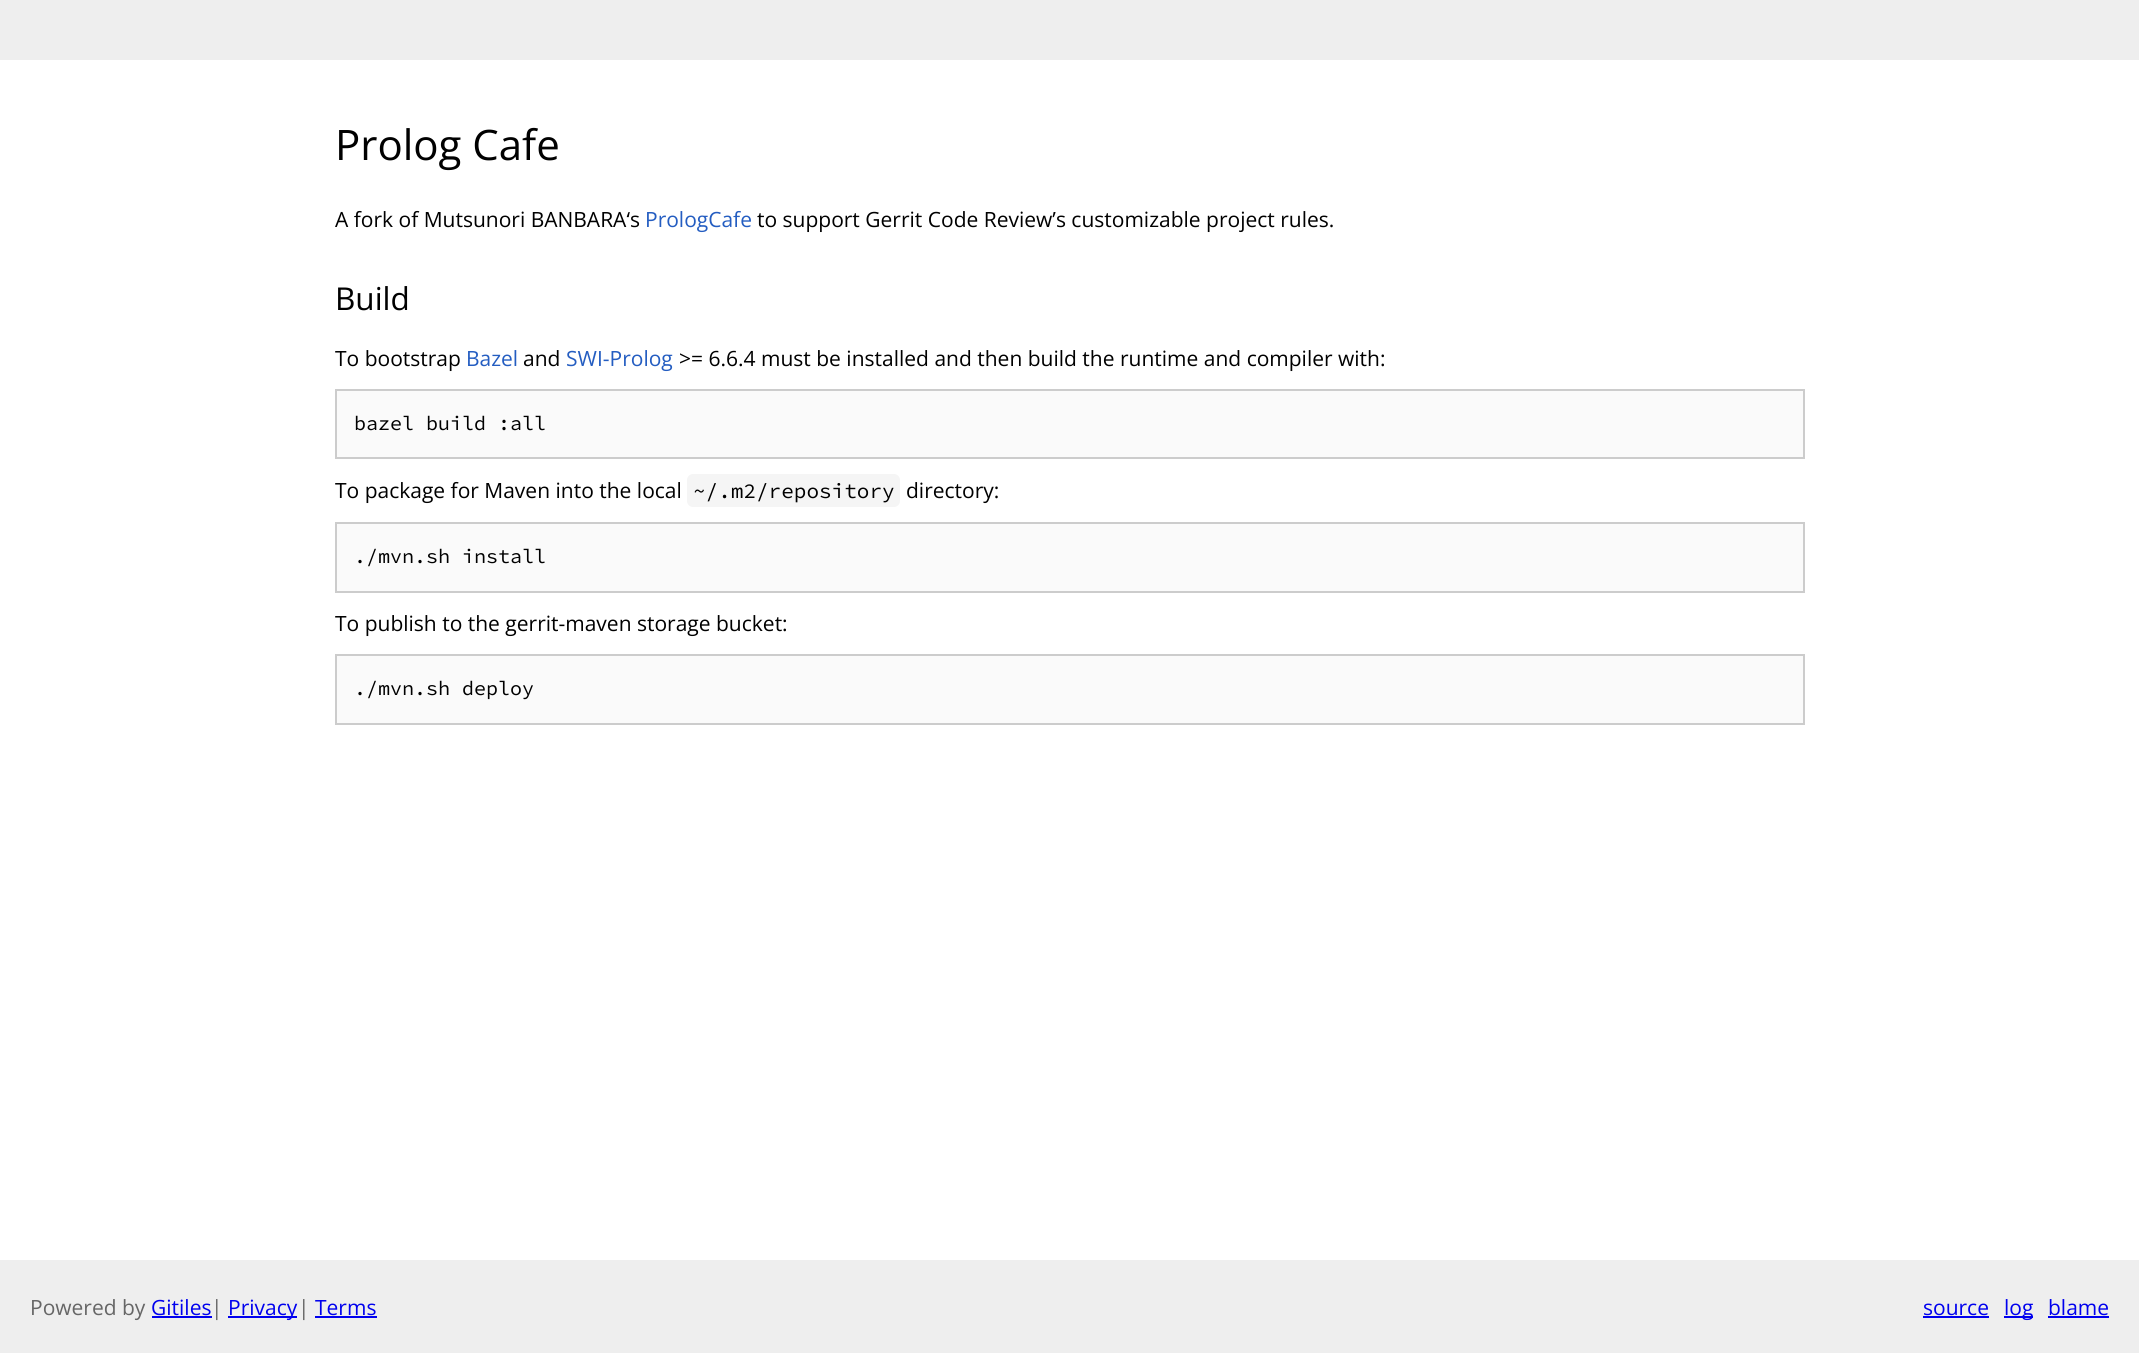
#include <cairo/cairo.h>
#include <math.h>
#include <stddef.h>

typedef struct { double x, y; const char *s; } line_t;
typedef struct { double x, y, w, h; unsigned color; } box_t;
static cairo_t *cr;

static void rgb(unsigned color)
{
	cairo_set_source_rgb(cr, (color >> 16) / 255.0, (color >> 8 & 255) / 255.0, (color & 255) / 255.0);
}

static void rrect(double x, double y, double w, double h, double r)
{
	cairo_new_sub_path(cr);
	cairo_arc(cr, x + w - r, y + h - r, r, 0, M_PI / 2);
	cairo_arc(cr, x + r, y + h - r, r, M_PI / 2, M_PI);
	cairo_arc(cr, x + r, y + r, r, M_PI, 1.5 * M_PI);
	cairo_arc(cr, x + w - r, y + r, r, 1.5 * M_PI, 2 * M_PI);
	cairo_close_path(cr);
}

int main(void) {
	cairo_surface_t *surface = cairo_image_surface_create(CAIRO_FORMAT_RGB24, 2139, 1353);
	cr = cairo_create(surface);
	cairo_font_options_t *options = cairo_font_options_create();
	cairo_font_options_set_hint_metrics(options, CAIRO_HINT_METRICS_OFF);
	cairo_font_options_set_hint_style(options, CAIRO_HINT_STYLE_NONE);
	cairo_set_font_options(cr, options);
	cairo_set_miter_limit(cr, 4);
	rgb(0xffffff);
	cairo_paint(cr);
	rgb(0xeeeeee);
	cairo_rectangle(cr, 0, 0, 2139, 60);
	cairo_fill(cr);
	rgb(0xfafafa);
	cairo_rectangle(cr, 336, 390, 1468, 68);
	cairo_fill_preserve(cr);
	rgb(0xcccccc);
	cairo_stroke(cr);
	rgb(0xf5f5f5);
	rrect(687, 474, 213, 33, 6);
	cairo_fill(cr);
	rgb(0xfafafa);
	cairo_rectangle(cr, 336, 523, 1468, 69);
	cairo_fill_preserve(cr);
	rgb(0xcccccc);
	cairo_stroke(cr);
	rgb(0xfafafa);
	cairo_rectangle(cr, 336, 655, 1468, 69);
	cairo_fill_preserve(cr);
	rgb(0xcccccc);
	cairo_stroke(cr);
	{
		static const box_t items[] = {
			{0, 1260, 2139, 93, 0xeeeeee},
			{152, 1316, 60, 2, 0x0000ee},
			{228, 1316, 69, 2, 0x0000ee},
			{315, 1316, 62, 2, 0x0000ee},
			{1923, 1316, 66, 2, 0x0000ee},
			{2004, 1316, 29, 2, 0x0000ee},
			{2048, 1316, 61, 2, 0x0000ee},
		};
		for (size_t i = 0; i < sizeof items / sizeof *items; i++) {
			rgb(items[i].color);
			cairo_rectangle(cr, items[i].x, items[i].y, items[i].w, items[i].h);
			cairo_fill(cr);
		}
	}
	cairo_select_font_face(cr, "Open Sans", CAIRO_FONT_SLANT_NORMAL, CAIRO_FONT_WEIGHT_NORMAL);
	cairo_set_font_size(cr, 42);
	rgb(0x000000);
	cairo_move_to(cr, 335, 160);
	cairo_show_text(cr, "Prolog Cafe");
	cairo_set_font_size(cr, 21);
	cairo_move_to(cr, 335, 227);
	cairo_show_text(cr, "A fork of Mutsunori BANBARA‘s");
	rgb(0x245dc1);
	cairo_move_to(cr, 645, 227);
	cairo_show_text(cr, "PrologCafe");
	rgb(0x000000);
	cairo_move_to(cr, 757, 227);
	cairo_show_text(cr, "to support Gerrit Code Review’s customizable project rules.");
	cairo_set_font_size(cr, 31.5);
	cairo_move_to(cr, 335, 310);
	cairo_show_text(cr, "Build");
	cairo_set_font_size(cr, 21);
	cairo_move_to(cr, 335, 366);
	cairo_show_text(cr, "To bootstrap");
	rgb(0x245dc1);
	cairo_move_to(cr, 466, 366);
	cairo_show_text(cr, "Bazel");
	rgb(0x000000);
	cairo_move_to(cr, 523, 366);
	cairo_show_text(cr, "and");
	rgb(0x245dc1);
	cairo_move_to(cr, 566, 366);
	cairo_show_text(cr, "SWI-Prolog");
	rgb(0x000000);
	cairo_move_to(cr, 679, 366);
	cairo_show_text(cr, ">= 6.6.4 must be installed and then build the runtime and compiler with:");
	cairo_select_font_face(cr, "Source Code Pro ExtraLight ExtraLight", CAIRO_FONT_SLANT_NORMAL, CAIRO_FONT_WEIGHT_NORMAL);
	cairo_set_font_size(cr, 20);
	cairo_move_to(cr, 354, 430);
	cairo_show_text(cr, "bazel build :all");
	cairo_select_font_face(cr, "Open Sans", CAIRO_FONT_SLANT_NORMAL, CAIRO_FONT_WEIGHT_NORMAL);
	cairo_set_font_size(cr, 21);
	cairo_move_to(cr, 335, 498);
	cairo_show_text(cr, "To package for Maven into the local");
	cairo_select_font_face(cr, "Source Code Pro ExtraLight ExtraLight", CAIRO_FONT_SLANT_NORMAL, CAIRO_FONT_WEIGHT_NORMAL);
	cairo_move_to(cr, 693, 498);
	cairo_show_text(cr, "~/.m2/repository");
	cairo_select_font_face(cr, "Open Sans", CAIRO_FONT_SLANT_NORMAL, CAIRO_FONT_WEIGHT_NORMAL);
	cairo_move_to(cr, 906, 498);
	cairo_show_text(cr, "directory:");
	cairo_select_font_face(cr, "Source Code Pro ExtraLight ExtraLight", CAIRO_FONT_SLANT_NORMAL, CAIRO_FONT_WEIGHT_NORMAL);
	cairo_set_font_size(cr, 20);
	cairo_move_to(cr, 354, 563);
	cairo_show_text(cr, "./mvn.sh install");
	cairo_select_font_face(cr, "Open Sans", CAIRO_FONT_SLANT_NORMAL, CAIRO_FONT_WEIGHT_NORMAL);
	cairo_set_font_size(cr, 21);
	cairo_move_to(cr, 335, 631);
	cairo_show_text(cr, "To publish to the gerrit-maven storage bucket:");
	cairo_select_font_face(cr, "Source Code Pro ExtraLight ExtraLight", CAIRO_FONT_SLANT_NORMAL, CAIRO_FONT_WEIGHT_NORMAL);
	cairo_set_font_size(cr, 20);
	cairo_move_to(cr, 354, 695);
	cairo_show_text(cr, "./mvn.sh deploy");
	cairo_select_font_face(cr, "Open Sans", CAIRO_FONT_SLANT_NORMAL, CAIRO_FONT_WEIGHT_NORMAL);
	cairo_set_font_size(cr, 21);
	rgb(0x666666);
	cairo_move_to(cr, 30, 1315);
	cairo_show_text(cr, "Powered by");
	rgb(0x0000ee);
	cairo_move_to(cr, 151, 1315);
	cairo_show_text(cr, "Gitiles");
	rgb(0x666666);
	cairo_move_to(cr, 211, 1315);
	cairo_show_text(cr, "|");
	rgb(0x0000ee);
	cairo_move_to(cr, 228, 1315);
	cairo_show_text(cr, "Privacy");
	rgb(0x666666);
	cairo_move_to(cr, 298, 1315);
	cairo_show_text(cr, "|");
	rgb(0x0000ee);
	{
		static const line_t items[] = {
			{315, 1315, "Terms"},
			{1923, 1315, "source"},
			{2004, 1315, "log"},
			{2048, 1315, "blame"},
		};
		for (size_t i = 0; i < sizeof items / sizeof *items; i++) {
			cairo_move_to(cr, items[i].x, items[i].y);
			cairo_show_text(cr, items[i].s);
		}
	}
	cairo_surface_write_to_png(surface, "page.png");
	cairo_font_options_destroy(options);
	cairo_destroy(cr);
	cairo_surface_destroy(surface);
	return 0;
}
